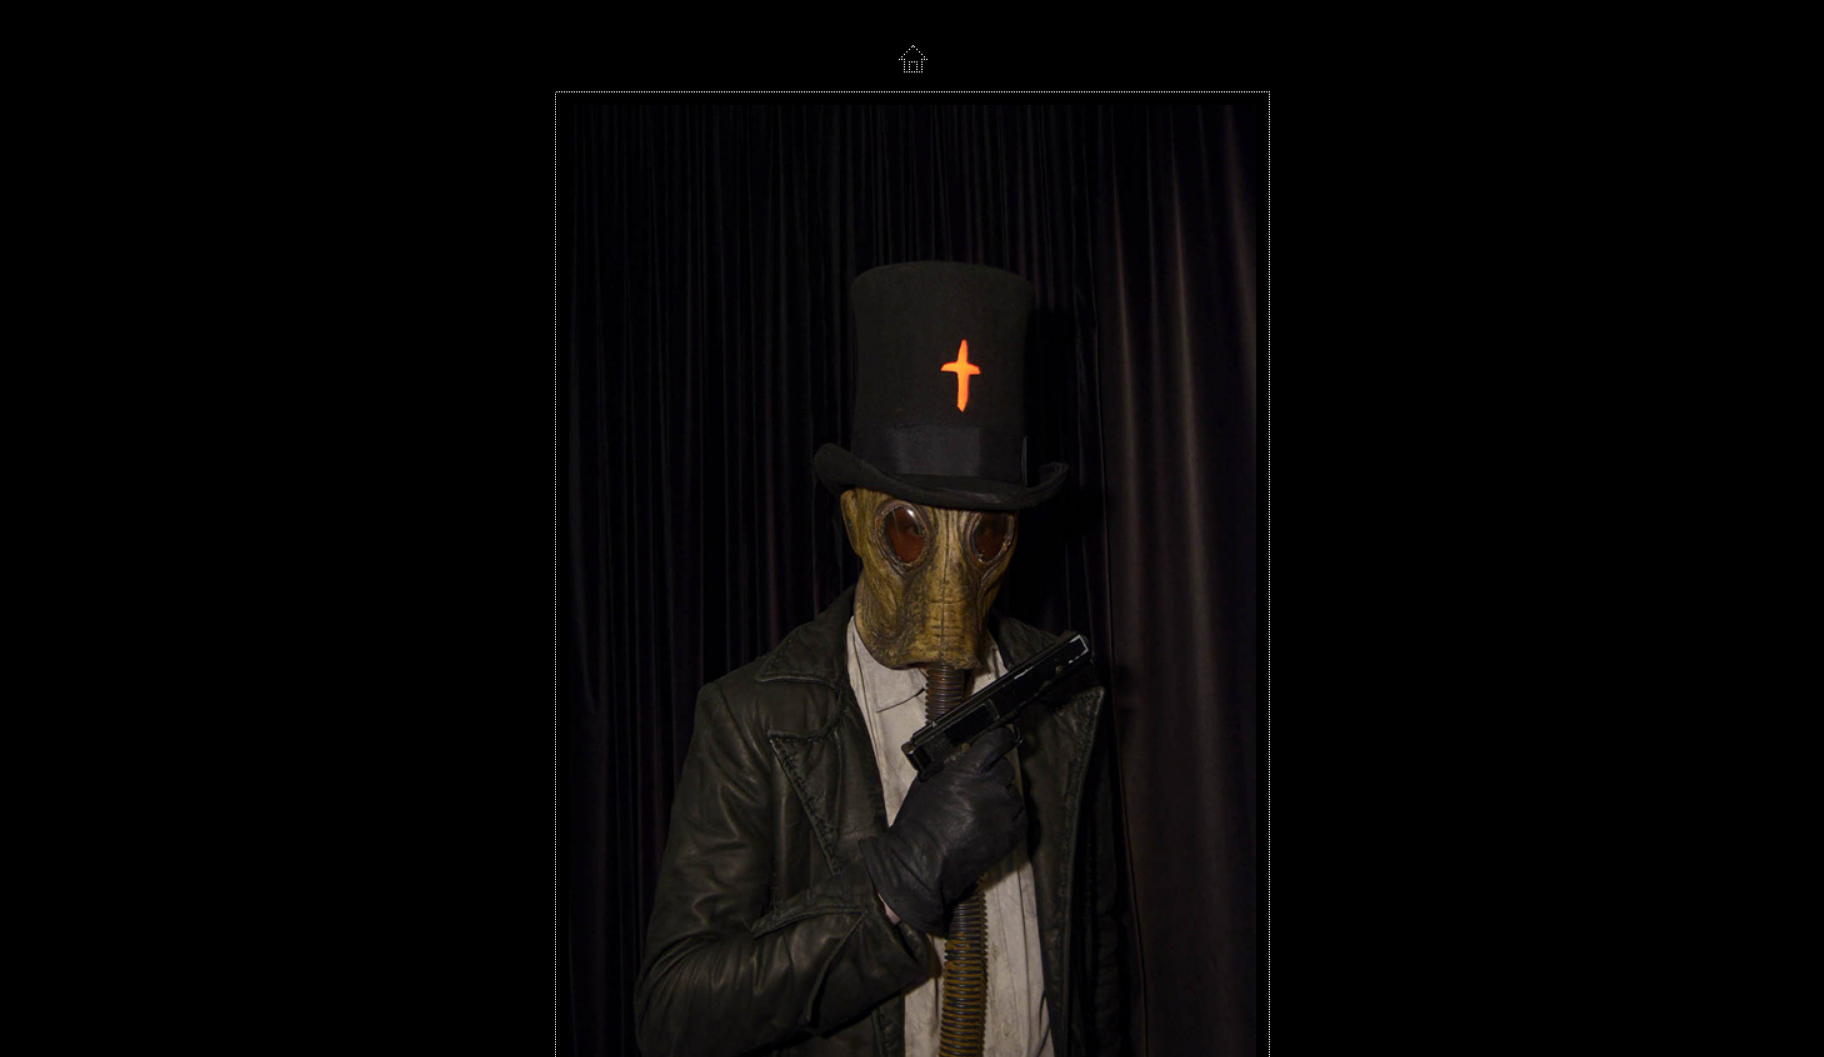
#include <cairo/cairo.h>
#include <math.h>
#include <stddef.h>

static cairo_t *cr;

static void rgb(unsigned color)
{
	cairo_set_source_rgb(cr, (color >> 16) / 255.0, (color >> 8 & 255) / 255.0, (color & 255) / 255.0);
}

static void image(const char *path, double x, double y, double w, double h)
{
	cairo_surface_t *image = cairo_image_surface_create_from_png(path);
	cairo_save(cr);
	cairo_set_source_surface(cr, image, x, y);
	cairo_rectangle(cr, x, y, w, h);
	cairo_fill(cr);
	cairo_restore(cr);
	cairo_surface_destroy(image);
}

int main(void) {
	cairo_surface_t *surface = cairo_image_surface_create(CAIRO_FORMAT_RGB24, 1824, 1057);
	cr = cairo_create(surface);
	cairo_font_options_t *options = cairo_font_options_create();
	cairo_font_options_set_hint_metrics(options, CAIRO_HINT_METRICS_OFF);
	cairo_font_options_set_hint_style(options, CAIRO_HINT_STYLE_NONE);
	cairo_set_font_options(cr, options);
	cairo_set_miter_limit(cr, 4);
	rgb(0x000000);
	cairo_paint(cr);
	image("img/1.png", 898, 45, 30, 28);
	image("img/2.png", 555, 91, 715, 2);
	image("img/3.png", 555, 92, 2, 965);
	image("img/4.png", 1268, 92, 2, 965);
	rgb(0x000000);
	cairo_rectangle(cr, 556, 93, 1, 964);
	cairo_fill(cr);
	image("img/5.png", 568, 105, 689, 952);
	cairo_surface_write_to_png(surface, "page.png");
	cairo_font_options_destroy(options);
	cairo_destroy(cr);
	cairo_surface_destroy(surface);
	return 0;
}
